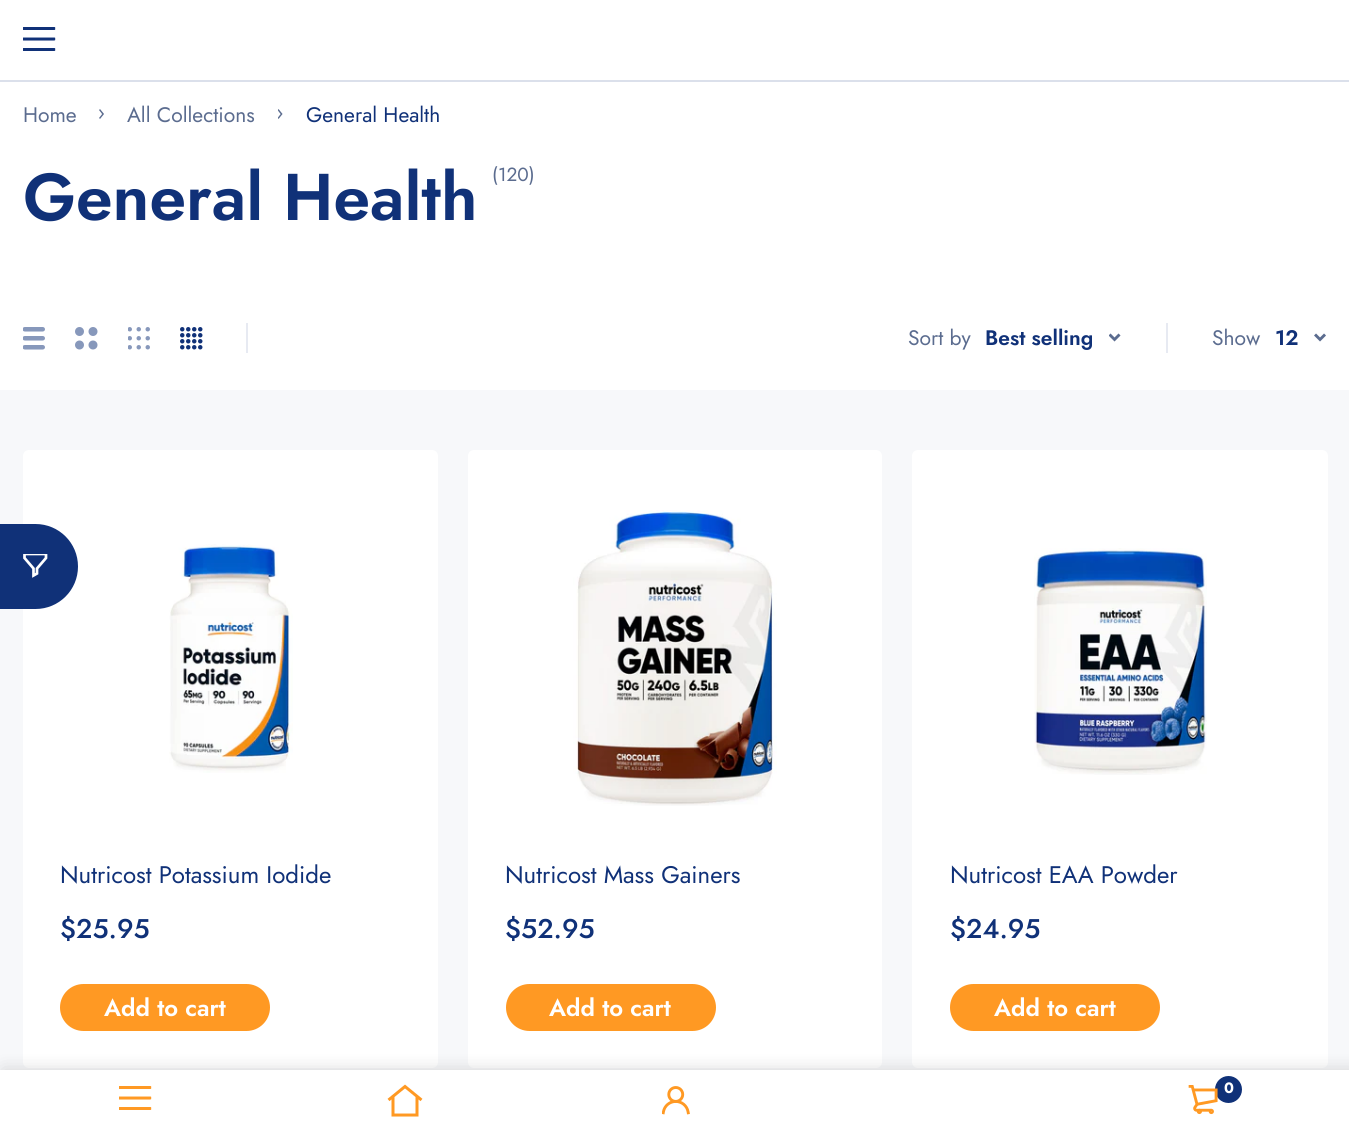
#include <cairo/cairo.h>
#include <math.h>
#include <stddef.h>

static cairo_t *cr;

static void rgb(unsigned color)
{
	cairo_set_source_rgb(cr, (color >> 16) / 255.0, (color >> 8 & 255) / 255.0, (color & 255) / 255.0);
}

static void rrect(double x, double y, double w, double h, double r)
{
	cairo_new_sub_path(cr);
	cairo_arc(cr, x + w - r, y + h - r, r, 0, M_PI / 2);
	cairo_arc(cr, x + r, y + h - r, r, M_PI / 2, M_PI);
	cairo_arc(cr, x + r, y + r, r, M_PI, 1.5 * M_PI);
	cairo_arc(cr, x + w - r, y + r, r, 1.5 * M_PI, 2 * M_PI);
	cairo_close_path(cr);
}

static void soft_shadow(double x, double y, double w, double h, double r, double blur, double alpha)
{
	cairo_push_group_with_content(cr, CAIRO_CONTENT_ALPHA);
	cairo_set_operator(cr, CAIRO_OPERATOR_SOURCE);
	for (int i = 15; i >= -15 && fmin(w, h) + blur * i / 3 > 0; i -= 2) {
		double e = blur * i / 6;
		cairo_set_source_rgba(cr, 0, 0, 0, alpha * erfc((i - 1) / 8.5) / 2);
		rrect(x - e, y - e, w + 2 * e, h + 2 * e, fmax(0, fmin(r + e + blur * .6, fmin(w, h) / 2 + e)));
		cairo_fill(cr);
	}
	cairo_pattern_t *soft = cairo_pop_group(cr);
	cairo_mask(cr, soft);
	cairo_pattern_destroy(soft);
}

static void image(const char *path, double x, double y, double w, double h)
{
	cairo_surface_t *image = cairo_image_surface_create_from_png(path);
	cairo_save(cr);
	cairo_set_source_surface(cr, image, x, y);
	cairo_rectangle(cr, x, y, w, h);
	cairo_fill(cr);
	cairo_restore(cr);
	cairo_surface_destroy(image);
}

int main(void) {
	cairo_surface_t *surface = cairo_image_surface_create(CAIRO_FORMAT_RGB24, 1349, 1129);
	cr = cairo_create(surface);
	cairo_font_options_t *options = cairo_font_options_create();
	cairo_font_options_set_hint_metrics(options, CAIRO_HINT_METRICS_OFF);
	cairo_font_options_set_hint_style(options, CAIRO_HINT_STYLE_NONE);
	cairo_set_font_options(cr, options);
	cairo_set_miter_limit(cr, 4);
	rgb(0xffffff);
	cairo_paint(cr);
	image("img/1.png", 23, 27, 33, 24);
	rgb(0xdbe0eb);
	cairo_rectangle(cr, 0, 80, 1349, 2);
	cairo_fill(cr);
	image("img/2.png", 99, 109, 5, 10);
	image("img/3.png", 278, 109, 5, 10);
	image("img/4.png", 23, 327, 22, 23);
	image("img/5.png", 75, 327, 23, 23);
	image("img/6.png", 128, 327, 22, 23);
	image("img/7.png", 180, 327, 23, 23);
	rgb(0xe7eaf2);
	cairo_rectangle(cr, 246, 323, 2, 30);
	cairo_fill(cr);
	image("img/8.png", 1109, 333, 12, 9);
	cairo_rectangle(cr, 1166, 323, 2, 30);
	cairo_fill(cr);
	rgb(0xf7f8fa);
	cairo_rectangle(cr, 0, 390, 1349, 680);
	cairo_fill(cr);
	rgb(0xffffff);
	rrect(23, 450, 415, 618, 6);
	cairo_fill(cr);
	rgb(0x103178);
	cairo_new_path(cr);
	cairo_move_to(cr, 0, 524);
	cairo_line_to(cr, 35.5, 524);
	cairo_curve_to(cr, 59, 524, 78, 543, 78, 566.5);
	cairo_curve_to(cr, 78, 590, 59, 609, 35.5, 609);
	cairo_line_to(cr, 0, 609);
	cairo_close_path(cr);
	cairo_fill(cr);
	cairo_save(cr);
	cairo_rectangle(cr, 23, 554, 25, 25);
	cairo_clip(cr);
	cairo_new_path(cr);
	cairo_move_to(cr, 24.5, 554);
	cairo_line_to(cr, 24.5, 558);
	cairo_line_to(cr, 33.5, 568.5);
	cairo_line_to(cr, 33.5, 575.5);
	cairo_line_to(cr, 37, 573.5);
	cairo_line_to(cr, 37, 568.5);
	cairo_line_to(cr, 46, 558);
	cairo_line_to(cr, 46, 554);
	cairo_close_path(cr);
	rgb(0xffffff);
	cairo_set_line_width(cr, 2.7);
	cairo_stroke(cr);
	cairo_restore(cr);
	image("img/9.png", 1314, 333, 12, 9);
	image("img/10.png", 169, 544, 124, 229);
	rgb(0xff9923);
	rrect(61, 985, 208, 45, 22.5);
	cairo_fill_preserve(cr);
	cairo_stroke(cr);
	rgb(0xffffff);
	rrect(468, 450, 414, 618, 6);
	cairo_fill(cr);
	image("img/11.png", 573, 510, 204, 296);
	rgb(0xff9923);
	rrect(507, 985, 208, 45, 22.5);
	cairo_fill_preserve(cr);
	cairo_stroke(cr);
	rgb(0xffffff);
	rrect(912, 450, 416, 618, 6);
	cairo_fill(cr);
	image("img/12.png", 1034, 548, 173, 227);
	rgb(0xff9923);
	rrect(951, 985, 208, 45, 22.5);
	cairo_fill_preserve(cr);
	cairo_stroke(cr);
	rgb(0x000000);
	soft_shadow(3, 1070, 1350, 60, 0, 9, 0.15);
	rgb(0xffffff);
	cairo_rectangle(cr, 0, 1070, 1349, 59);
	cairo_fill(cr);
	image("img/13.png", 119, 1086, 33, 24);
	cairo_new_path(cr);
	cairo_move_to(cr, 417, 1097);
	cairo_line_to(cr, 417, 1115);
	cairo_line_to(cr, 393, 1115);
	cairo_line_to(cr, 393, 1097);
	cairo_move_to(cr, 421.5, 1100);
	cairo_line_to(cr, 405, 1086.5);
	cairo_line_to(cr, 388.5, 1100);
	rgb(0xff9923);
	cairo_set_line_width(cr, 3);
	cairo_stroke(cr);
	image("img/14.png", 662, 1086, 28, 29);
	rgb(0x103178);
	cairo_arc(cr, 1228.5, 1089.5, 13.5, 0, 2 * M_PI);
	cairo_fill(cr);
	image("img/15.png", 1188, 1085, 30, 30);
	cairo_select_font_face(cr, "Jost", CAIRO_FONT_SLANT_NORMAL, CAIRO_FONT_WEIGHT_NORMAL);
	cairo_set_font_size(cr, 21);
	rgb(0x5b6c8f);
	cairo_move_to(cr, 23, 122);
	cairo_show_text(cr, "Home");
	cairo_move_to(cr, 127, 122);
	cairo_show_text(cr, "All Collections");
	rgb(0x103178);
	cairo_move_to(cr, 306, 122);
	cairo_show_text(cr, "General Health");
	cairo_select_font_face(cr, "Jost SemiBold", CAIRO_FONT_SLANT_NORMAL, CAIRO_FONT_WEIGHT_NORMAL);
	cairo_set_font_size(cr, 66);
	cairo_move_to(cr, 23, 220);
	cairo_show_text(cr, "General Health");
	cairo_select_font_face(cr, "Jost", CAIRO_FONT_SLANT_NORMAL, CAIRO_FONT_WEIGHT_NORMAL);
	cairo_set_font_size(cr, 19);
	rgb(0x5b6c8f);
	cairo_move_to(cr, 492, 181);
	cairo_show_text(cr, "(120)");
	cairo_set_font_size(cr, 21);
	cairo_move_to(cr, 908, 345);
	cairo_show_text(cr, "Sort by");
	cairo_select_font_face(cr, "Jost SemiBold", CAIRO_FONT_SLANT_NORMAL, CAIRO_FONT_WEIGHT_NORMAL);
	rgb(0x103178);
	cairo_move_to(cr, 985, 345);
	cairo_show_text(cr, "Best selling");
	cairo_select_font_face(cr, "Jost", CAIRO_FONT_SLANT_NORMAL, CAIRO_FONT_WEIGHT_NORMAL);
	rgb(0x5b6c8f);
	cairo_move_to(cr, 1212, 345);
	cairo_show_text(cr, "Show");
	cairo_select_font_face(cr, "Jost SemiBold", CAIRO_FONT_SLANT_NORMAL, CAIRO_FONT_WEIGHT_NORMAL);
	rgb(0x103178);
	cairo_move_to(cr, 1275, 345);
	cairo_show_text(cr, "12");
	cairo_select_font_face(cr, "Jost", CAIRO_FONT_SLANT_NORMAL, CAIRO_FONT_WEIGHT_NORMAL);
	cairo_set_font_size(cr, 24);
	cairo_move_to(cr, 60, 883);
	cairo_show_text(cr, "Nutricost Potassium Iodide");
	cairo_select_font_face(cr, "Jost Medium", CAIRO_FONT_SLANT_NORMAL, CAIRO_FONT_WEIGHT_NORMAL);
	cairo_set_font_size(cr, 27);
	cairo_move_to(cr, 60, 938);
	cairo_show_text(cr, "$25.95");
	cairo_select_font_face(cr, "Jost SemiBold", CAIRO_FONT_SLANT_NORMAL, CAIRO_FONT_WEIGHT_NORMAL);
	cairo_set_font_size(cr, 24);
	rgb(0xffffff);
	cairo_move_to(cr, 104, 1016);
	cairo_show_text(cr, "Add to cart");
	cairo_select_font_face(cr, "Jost", CAIRO_FONT_SLANT_NORMAL, CAIRO_FONT_WEIGHT_NORMAL);
	rgb(0x103178);
	cairo_move_to(cr, 505, 883);
	cairo_show_text(cr, "Nutricost Mass Gainers");
	cairo_select_font_face(cr, "Jost Medium", CAIRO_FONT_SLANT_NORMAL, CAIRO_FONT_WEIGHT_NORMAL);
	cairo_set_font_size(cr, 27);
	cairo_move_to(cr, 505, 938);
	cairo_show_text(cr, "$52.95");
	cairo_select_font_face(cr, "Jost SemiBold", CAIRO_FONT_SLANT_NORMAL, CAIRO_FONT_WEIGHT_NORMAL);
	cairo_set_font_size(cr, 24);
	rgb(0xffffff);
	cairo_move_to(cr, 549, 1016);
	cairo_show_text(cr, "Add to cart");
	cairo_select_font_face(cr, "Jost", CAIRO_FONT_SLANT_NORMAL, CAIRO_FONT_WEIGHT_NORMAL);
	rgb(0x103178);
	cairo_move_to(cr, 950, 883);
	cairo_show_text(cr, "Nutricost EAA Powder");
	cairo_select_font_face(cr, "Jost Medium", CAIRO_FONT_SLANT_NORMAL, CAIRO_FONT_WEIGHT_NORMAL);
	cairo_set_font_size(cr, 27);
	cairo_move_to(cr, 950, 938);
	cairo_show_text(cr, "$24.95");
	cairo_select_font_face(cr, "Jost SemiBold", CAIRO_FONT_SLANT_NORMAL, CAIRO_FONT_WEIGHT_NORMAL);
	cairo_set_font_size(cr, 24);
	rgb(0xffffff);
	cairo_move_to(cr, 994, 1016);
	cairo_show_text(cr, "Add to cart");
	cairo_select_font_face(cr, "Jost", CAIRO_FONT_SLANT_NORMAL, CAIRO_FONT_WEIGHT_BOLD);
	cairo_set_font_size(cr, 15);
	cairo_move_to(cr, 1224, 1093);
	cairo_show_text(cr, "0");
	cairo_surface_write_to_png(surface, "page.png");
	cairo_font_options_destroy(options);
	cairo_destroy(cr);
	cairo_surface_destroy(surface);
	return 0;
}
